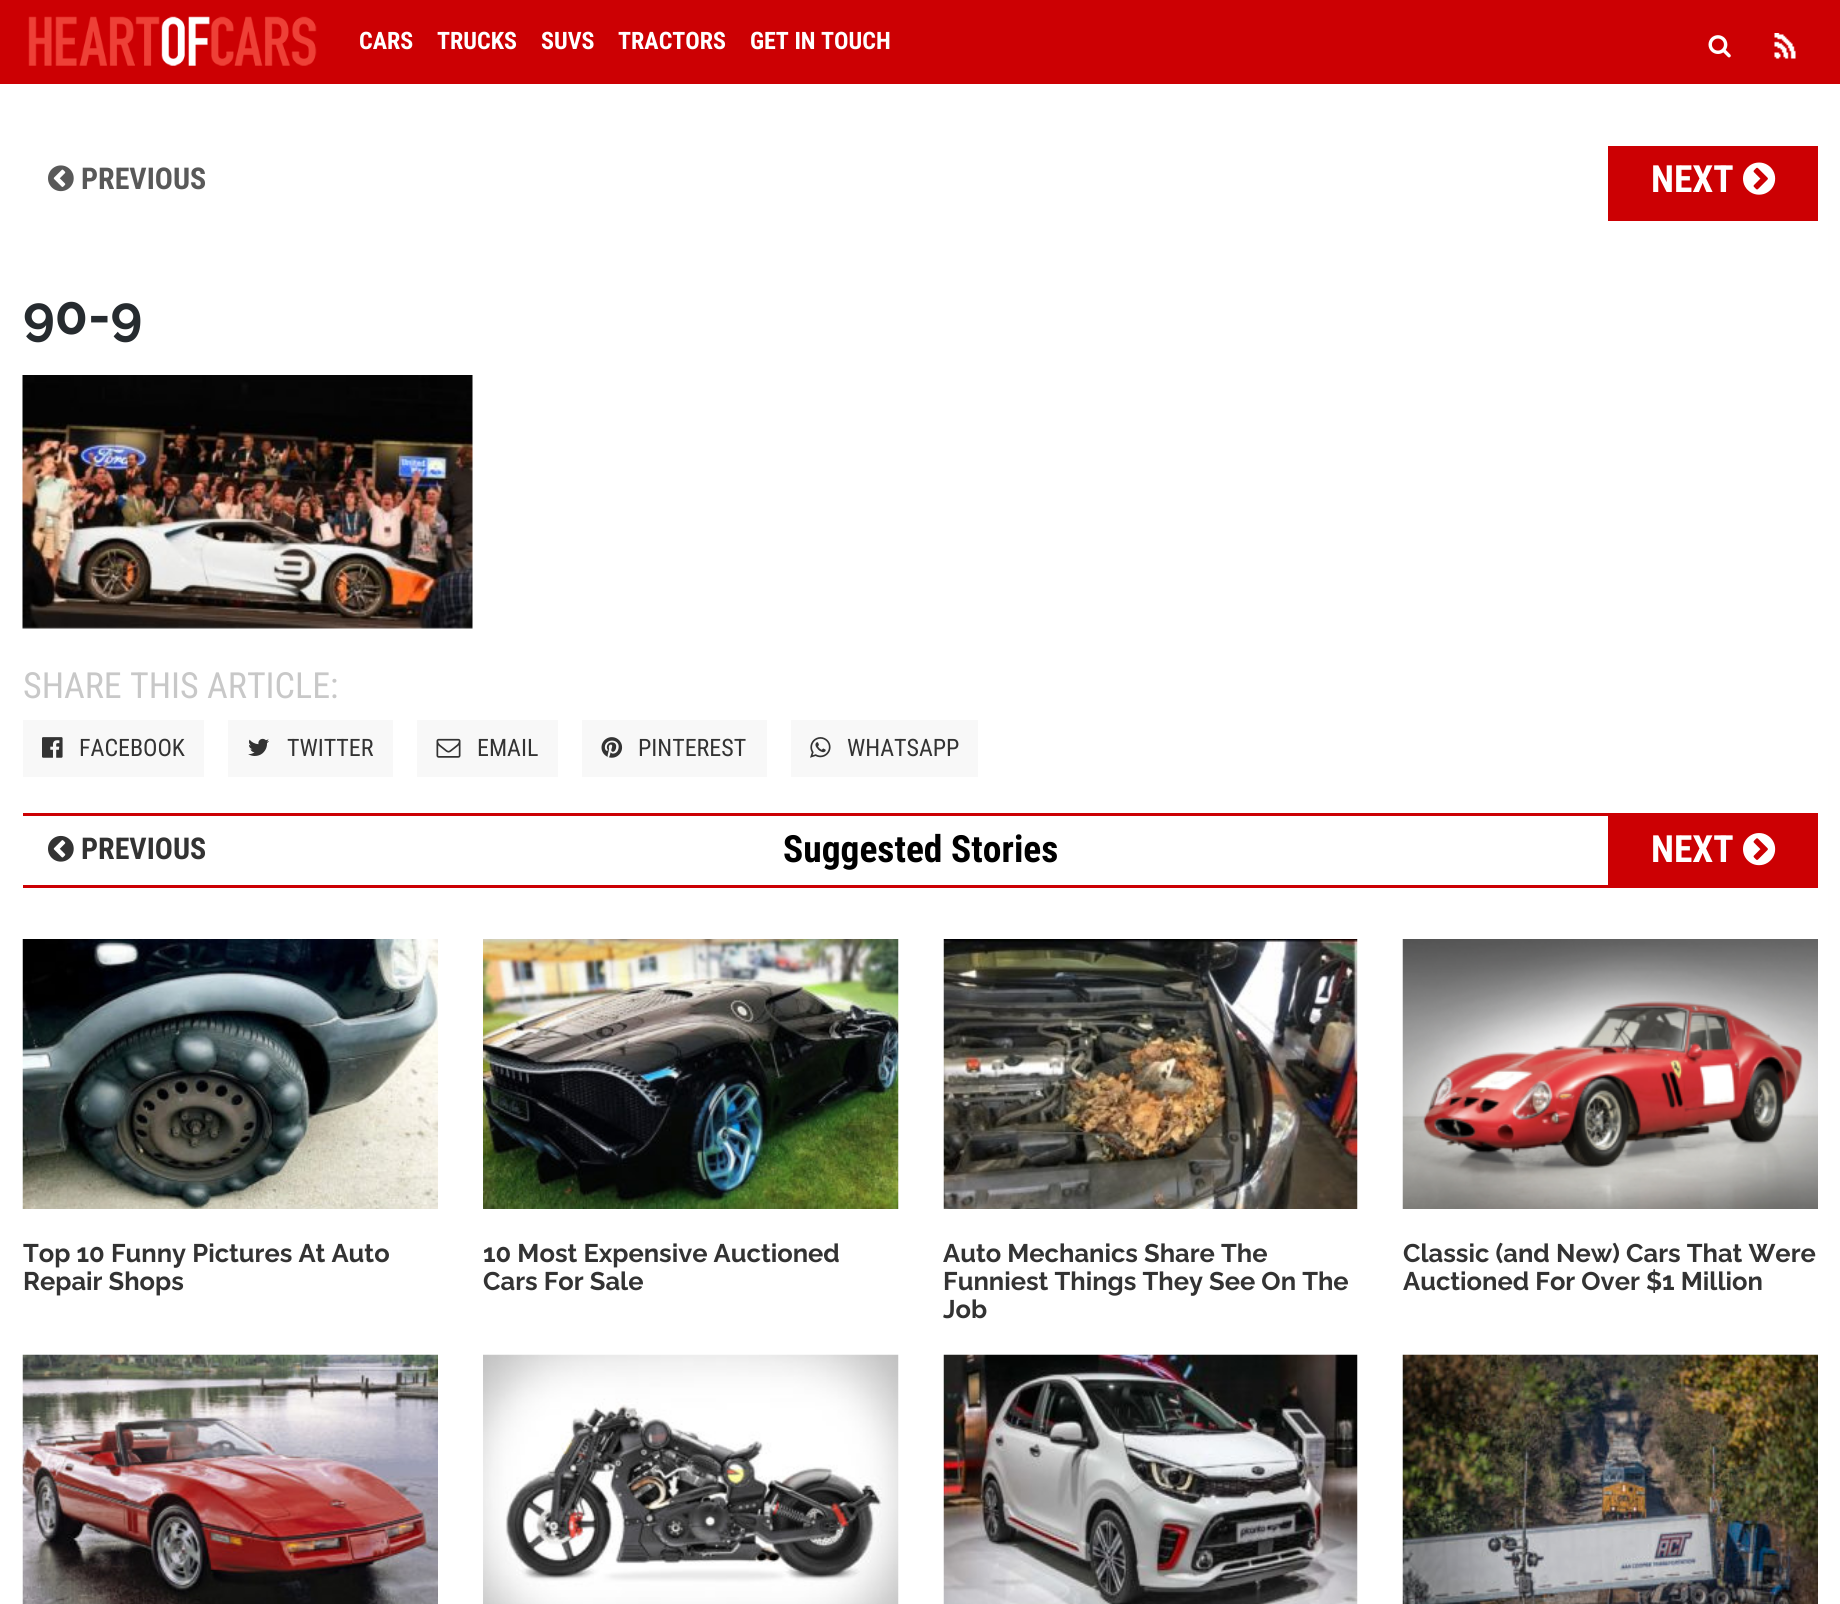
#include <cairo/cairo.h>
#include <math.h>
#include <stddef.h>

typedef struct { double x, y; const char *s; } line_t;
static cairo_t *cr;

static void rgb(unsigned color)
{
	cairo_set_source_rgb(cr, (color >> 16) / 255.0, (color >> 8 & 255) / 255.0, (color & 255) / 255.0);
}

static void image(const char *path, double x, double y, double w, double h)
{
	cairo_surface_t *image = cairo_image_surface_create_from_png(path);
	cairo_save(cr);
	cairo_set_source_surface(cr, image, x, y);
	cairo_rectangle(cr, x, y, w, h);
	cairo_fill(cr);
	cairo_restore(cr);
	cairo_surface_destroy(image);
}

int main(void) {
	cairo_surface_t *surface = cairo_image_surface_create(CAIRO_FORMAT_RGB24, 1840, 1604);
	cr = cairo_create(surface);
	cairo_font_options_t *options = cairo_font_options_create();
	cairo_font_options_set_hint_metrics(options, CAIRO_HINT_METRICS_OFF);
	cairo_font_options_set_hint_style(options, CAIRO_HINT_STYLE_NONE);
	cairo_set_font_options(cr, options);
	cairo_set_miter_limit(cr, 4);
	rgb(0xffffff);
	cairo_paint(cr);
	rgb(0xcc0003);
	cairo_rectangle(cr, 0, 0, 1840, 84);
	cairo_fill(cr);
	image("img/1.png", 28, 16, 289, 50);
	image("img/2.png", 1708, 35, 23, 23);
	image("img/3.png", 1774, 33, 22, 26);
	image("img/4.png", 48, 165, 26, 27);
	cairo_rectangle(cr, 1608, 146, 210, 75);
	cairo_fill(cr);
	image("img/5.png", 1743, 162, 33, 33);
	image("img/6.png", 22, 375, 451, 254);
	rgb(0xf8f8f8);
	cairo_rectangle(cr, 23, 720, 181, 57);
	cairo_fill(cr);
	image("img/7.png", 42, 737, 21, 21);
	cairo_rectangle(cr, 228, 720, 165, 57);
	cairo_fill(cr);
	image("img/8.png", 248, 738, 21, 18);
	cairo_rectangle(cr, 417, 720, 141, 57);
	cairo_fill(cr);
	image("img/9.png", 436, 738, 25, 20);
	cairo_rectangle(cr, 582, 720, 185, 57);
	cairo_fill(cr);
	image("img/10.png", 601, 737, 22, 21);
	cairo_rectangle(cr, 791, 720, 187, 57);
	cairo_fill(cr);
	image("img/11.png", 810, 737, 21, 21);
	rgb(0xcc0003);
	cairo_rectangle(cr, 23, 813, 1795, 3);
	cairo_fill(cr);
	cairo_rectangle(cr, 23, 885, 1795, 3);
	cairo_fill(cr);
	image("img/12.png", 48, 835, 26, 27);
	cairo_rectangle(cr, 1608, 816, 210, 69);
	cairo_fill(cr);
	image("img/13.png", 1743, 833, 33, 33);
	image("img/14.png", 22, 939, 416, 270);
	image("img/15.png", 483, 939, 416, 270);
	image("img/16.png", 943, 939, 415, 270);
	image("img/17.png", 1402, 939, 416, 270);
	image("img/18.png", 22, 1354, 416, 250);
	image("img/19.png", 483, 1354, 416, 250);
	image("img/20.png", 943, 1354, 415, 250);
	image("img/21.png", 1402, 1354, 416, 250);
	cairo_select_font_face(cr, "Roboto Condensed", CAIRO_FONT_SLANT_NORMAL, CAIRO_FONT_WEIGHT_BOLD);
	cairo_set_font_size(cr, 24);
	rgb(0xffffff);
	{
		static const line_t items[] = {
			{359, 49, "CARS"},
			{437, 49, "TRUCKS"},
			{541, 49, "SUVS"},
			{618, 49, "TRACTORS"},
			{750, 49, "GET IN TOUCH"},
		};
		for (size_t i = 0; i < sizeof items / sizeof *items; i++) {
			cairo_move_to(cr, items[i].x, items[i].y);
			cairo_show_text(cr, items[i].s);
		}
	}
	cairo_set_font_size(cr, 30);
	rgb(0x595959);
	cairo_move_to(cr, 81, 189);
	cairo_show_text(cr, "PREVIOUS");
	cairo_set_font_size(cr, 37.5);
	rgb(0xffffff);
	cairo_move_to(cr, 1651, 192);
	cairo_show_text(cr, "NEXT");
	cairo_select_font_face(cr, "Raleway", CAIRO_FONT_SLANT_NORMAL, CAIRO_FONT_WEIGHT_BOLD);
	cairo_set_font_size(cr, 54);
	rgb(0x262b2f);
	cairo_move_to(cr, 23, 334);
	cairo_show_text(cr, "90-9");
	cairo_select_font_face(cr, "Roboto Condensed", CAIRO_FONT_SLANT_NORMAL, CAIRO_FONT_WEIGHT_NORMAL);
	cairo_set_font_size(cr, 36);
	rgb(0xc8c8c8);
	cairo_move_to(cr, 23, 698);
	cairo_show_text(cr, "SHARE THIS ARTICLE:");
	cairo_set_font_size(cr, 24);
	rgb(0x333333);
	{
		static const line_t items[] = {
			{79, 756, "FACEBOOK"},
			{287, 756, "TWITTER"},
			{477, 756, "EMAIL"},
			{638, 756, "PINTEREST"},
			{847, 756, "WHATSAPP"},
		};
		for (size_t i = 0; i < sizeof items / sizeof *items; i++) {
			cairo_move_to(cr, items[i].x, items[i].y);
			cairo_show_text(cr, items[i].s);
		}
	}
	cairo_select_font_face(cr, "Roboto Condensed", CAIRO_FONT_SLANT_NORMAL, CAIRO_FONT_WEIGHT_BOLD);
	cairo_set_font_size(cr, 30);
	cairo_move_to(cr, 81, 859);
	cairo_show_text(cr, "PREVIOUS");
	cairo_set_font_size(cr, 37.5);
	rgb(0x000000);
	cairo_move_to(cr, 783, 862);
	cairo_show_text(cr, "Suggested Stories");
	rgb(0xffffff);
	cairo_move_to(cr, 1651, 862);
	cairo_show_text(cr, "NEXT");
	cairo_select_font_face(cr, "Raleway", CAIRO_FONT_SLANT_NORMAL, CAIRO_FONT_WEIGHT_BOLD);
	cairo_set_font_size(cr, 25.5);
	rgb(0x333333);
	{
		static const line_t items[] = {
			{23, 1262, "Top 10 Funny Pictures At Auto"},
			{23, 1290, "Repair Shops"},
			{483, 1262, "10 Most Expensive Auctioned"},
			{483, 1290, "Cars For Sale"},
			{943, 1262, "Auto Mechanics Share The"},
			{943, 1290, "Funniest Things They See On The"},
			{943, 1318, "Job"},
			{1403, 1262, "Classic (and New) Cars That Were"},
			{1403, 1290, "Auctioned For Over $1 Million"},
		};
		for (size_t i = 0; i < sizeof items / sizeof *items; i++) {
			cairo_move_to(cr, items[i].x, items[i].y);
			cairo_show_text(cr, items[i].s);
		}
	}
	cairo_surface_write_to_png(surface, "page.png");
	cairo_font_options_destroy(options);
	cairo_destroy(cr);
	cairo_surface_destroy(surface);
	return 0;
}
